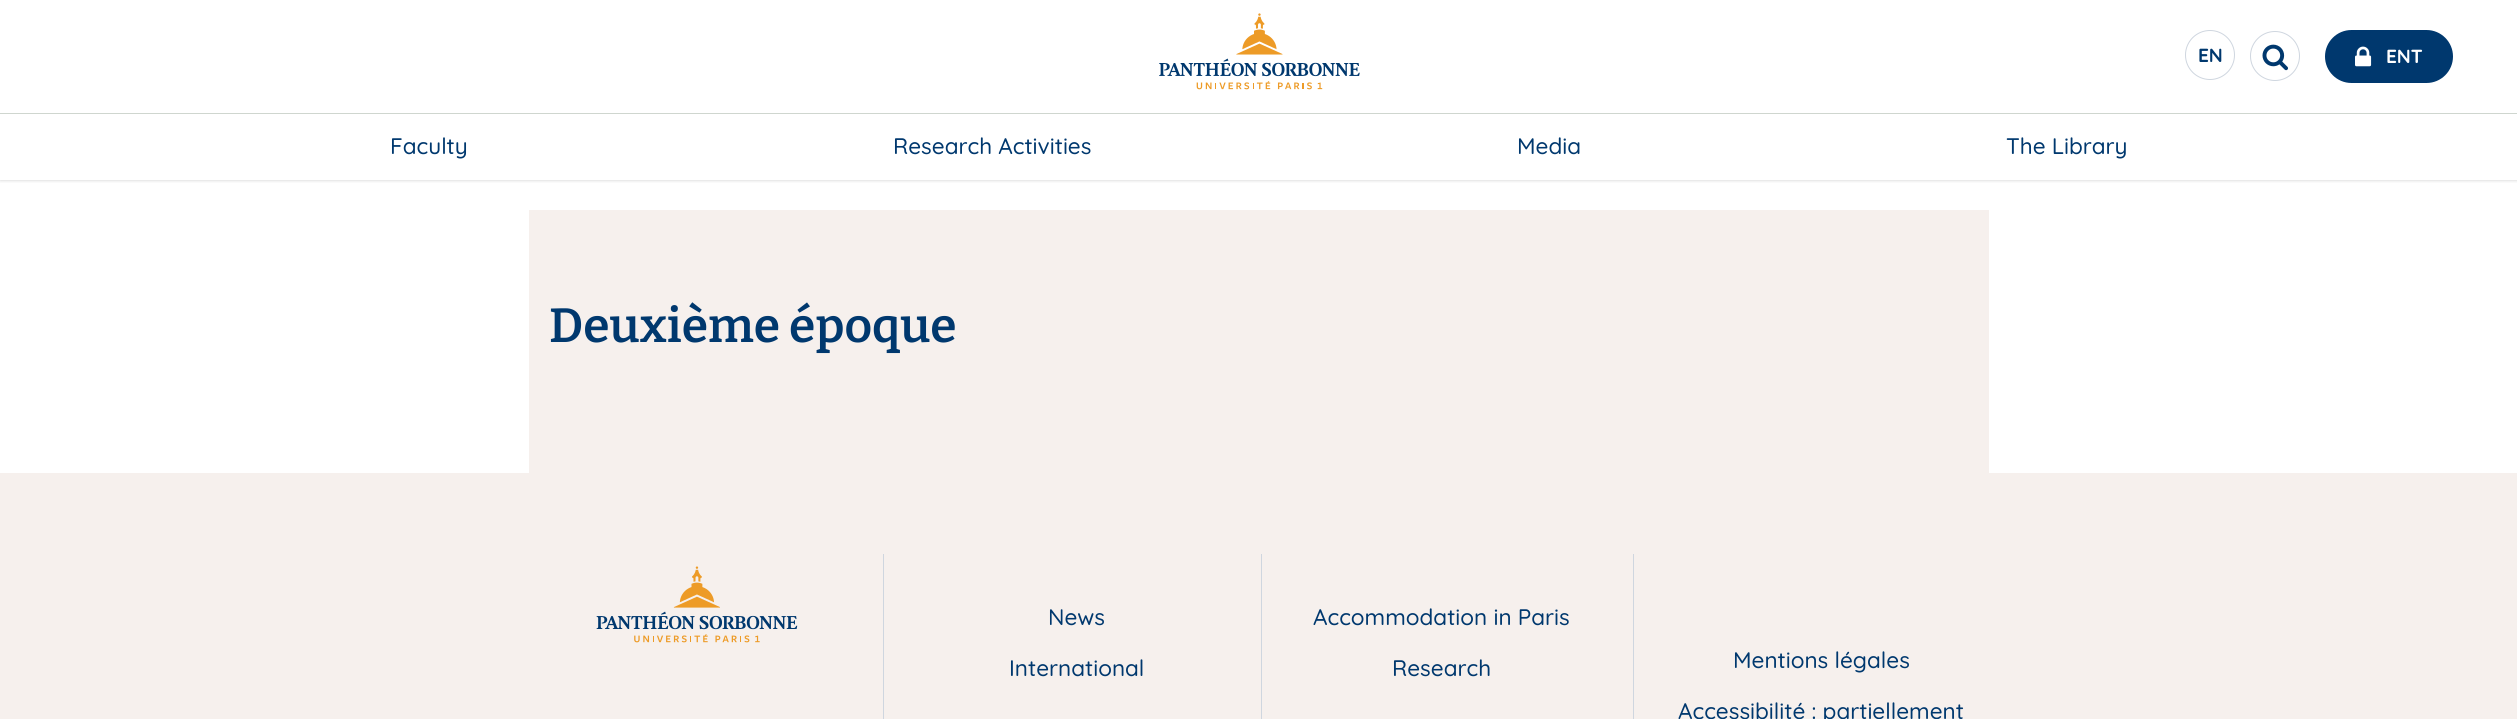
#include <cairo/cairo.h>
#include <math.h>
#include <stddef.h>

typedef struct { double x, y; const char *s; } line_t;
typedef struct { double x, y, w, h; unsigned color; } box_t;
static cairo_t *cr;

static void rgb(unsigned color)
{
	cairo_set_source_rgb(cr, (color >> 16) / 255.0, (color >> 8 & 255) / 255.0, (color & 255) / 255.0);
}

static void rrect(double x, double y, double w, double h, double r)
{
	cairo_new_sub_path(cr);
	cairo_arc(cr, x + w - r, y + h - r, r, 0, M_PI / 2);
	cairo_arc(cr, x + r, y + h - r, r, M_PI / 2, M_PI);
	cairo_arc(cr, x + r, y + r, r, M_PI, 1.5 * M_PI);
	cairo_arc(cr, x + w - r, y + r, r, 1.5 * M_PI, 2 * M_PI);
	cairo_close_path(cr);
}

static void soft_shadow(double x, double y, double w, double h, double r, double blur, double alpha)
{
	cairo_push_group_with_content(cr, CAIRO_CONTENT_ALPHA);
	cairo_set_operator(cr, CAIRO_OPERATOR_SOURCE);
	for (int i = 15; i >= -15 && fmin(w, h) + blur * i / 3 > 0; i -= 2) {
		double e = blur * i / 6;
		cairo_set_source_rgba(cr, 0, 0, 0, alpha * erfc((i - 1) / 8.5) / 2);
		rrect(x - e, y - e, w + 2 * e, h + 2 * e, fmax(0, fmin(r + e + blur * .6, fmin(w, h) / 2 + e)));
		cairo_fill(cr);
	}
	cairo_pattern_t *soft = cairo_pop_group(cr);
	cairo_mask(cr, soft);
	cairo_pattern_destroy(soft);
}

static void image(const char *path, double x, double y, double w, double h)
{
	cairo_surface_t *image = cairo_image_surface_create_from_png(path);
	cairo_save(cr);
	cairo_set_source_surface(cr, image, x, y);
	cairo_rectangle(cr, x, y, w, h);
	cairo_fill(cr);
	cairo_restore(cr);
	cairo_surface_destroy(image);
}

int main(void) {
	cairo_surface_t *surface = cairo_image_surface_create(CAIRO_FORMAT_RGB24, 2517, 719);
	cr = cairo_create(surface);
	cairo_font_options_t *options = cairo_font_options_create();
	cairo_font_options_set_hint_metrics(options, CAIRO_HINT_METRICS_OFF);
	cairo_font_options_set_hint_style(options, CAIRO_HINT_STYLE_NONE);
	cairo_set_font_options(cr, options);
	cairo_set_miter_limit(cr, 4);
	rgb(0xffffff);
	cairo_paint(cr);
	cairo_save(cr);
	cairo_rectangle(cr, 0, 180, 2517, 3);
	cairo_clip(cr);
	rgb(0x333333);
	soft_shadow(0, 0, 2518, 180, 0, 2, 0.25);
	cairo_restore(cr);
	image("img/1.png", 1159, 13, 201, 77);
	cairo_arc(cr, 2210, 55, 24.5, 0, 2 * M_PI);
	rgb(0xcfd6df);
	cairo_set_line_width(cr, 1);
	cairo_stroke(cr);
	cairo_arc(cr, 2275, 56, 24.5, 0, 2 * M_PI);
	cairo_stroke(cr);
	image("img/2.png", 2262, 44, 26, 27);
	rgb(0x00386e);
	rrect(2325, 30, 128, 53, 26.5);
	cairo_fill(cr);
	image("img/3.png", 2355, 46, 17, 21);
	{
		static const box_t items[] = {
			{0, 113, 2517, 1, 0xcfd6cf},
			{529, 210, 1460, 263, 0xf6f0ed},
			{0, 473, 2517, 246, 0xf6f0ed},
		};
		for (size_t i = 0; i < sizeof items / sizeof *items; i++) {
			rgb(items[i].color);
			cairo_rectangle(cr, items[i].x, items[i].y, items[i].w, items[i].h);
			cairo_fill(cr);
		}
	}
	image("img/4.png", 596, 566, 202, 77);
	{
		static const box_t items[] = {
			{883, 554, 1, 165, 0xcfd6df},
			{1261, 554, 1, 165, 0xcfd6df},
			{1633, 554, 1, 165, 0xcfd6df},
		};
		for (size_t i = 0; i < sizeof items / sizeof *items; i++) {
			rgb(items[i].color);
			cairo_rectangle(cr, items[i].x, items[i].y, items[i].w, items[i].h);
			cairo_fill(cr);
		}
	}
	cairo_select_font_face(cr, "Quicksand", CAIRO_FONT_SLANT_NORMAL, CAIRO_FONT_WEIGHT_BOLD);
	cairo_set_font_size(cr, 19);
	rgb(0x00386e);
	cairo_move_to(cr, 2198, 62);
	cairo_show_text(cr, "EN");
	rgb(0xffffff);
	cairo_move_to(cr, 2386, 63);
	cairo_show_text(cr, "ENT");
	cairo_select_font_face(cr, "Quicksand Medium", CAIRO_FONT_SLANT_NORMAL, CAIRO_FONT_WEIGHT_NORMAL);
	cairo_set_font_size(cr, 22.5);
	rgb(0x00386e);
	{
		static const line_t items[] = {
			{390, 154, "Faculty"},
			{893, 154, "Research Activities"},
			{1517, 154, "Media"},
			{2006, 154, "The Library"},
		};
		for (size_t i = 0; i < sizeof items / sizeof *items; i++) {
			cairo_move_to(cr, items[i].x, items[i].y);
			cairo_show_text(cr, items[i].s);
		}
	}
	cairo_select_font_face(cr, "Bitter Thin", CAIRO_FONT_SLANT_NORMAL, CAIRO_FONT_WEIGHT_NORMAL);
	cairo_set_font_size(cr, 48);
	cairo_move_to(cr, 549, 342);
	cairo_show_text(cr, "Deuxième époque");
	cairo_select_font_face(cr, "Quicksand Medium", CAIRO_FONT_SLANT_NORMAL, CAIRO_FONT_WEIGHT_NORMAL);
	cairo_set_font_size(cr, 22.5);
	{
		static const line_t items[] = {
			{1048, 625, "News"},
			{1313, 625, "Accommodation in Paris"},
			{1009, 676, "International"},
			{1392, 676, "Research"},
			{1733, 668, "Mentions légales"},
			{1678, 719, "Accessibilité : partiellement"},
		};
		for (size_t i = 0; i < sizeof items / sizeof *items; i++) {
			cairo_move_to(cr, items[i].x, items[i].y);
			cairo_show_text(cr, items[i].s);
		}
	}
	cairo_surface_write_to_png(surface, "page.png");
	cairo_font_options_destroy(options);
	cairo_destroy(cr);
	cairo_surface_destroy(surface);
	return 0;
}
